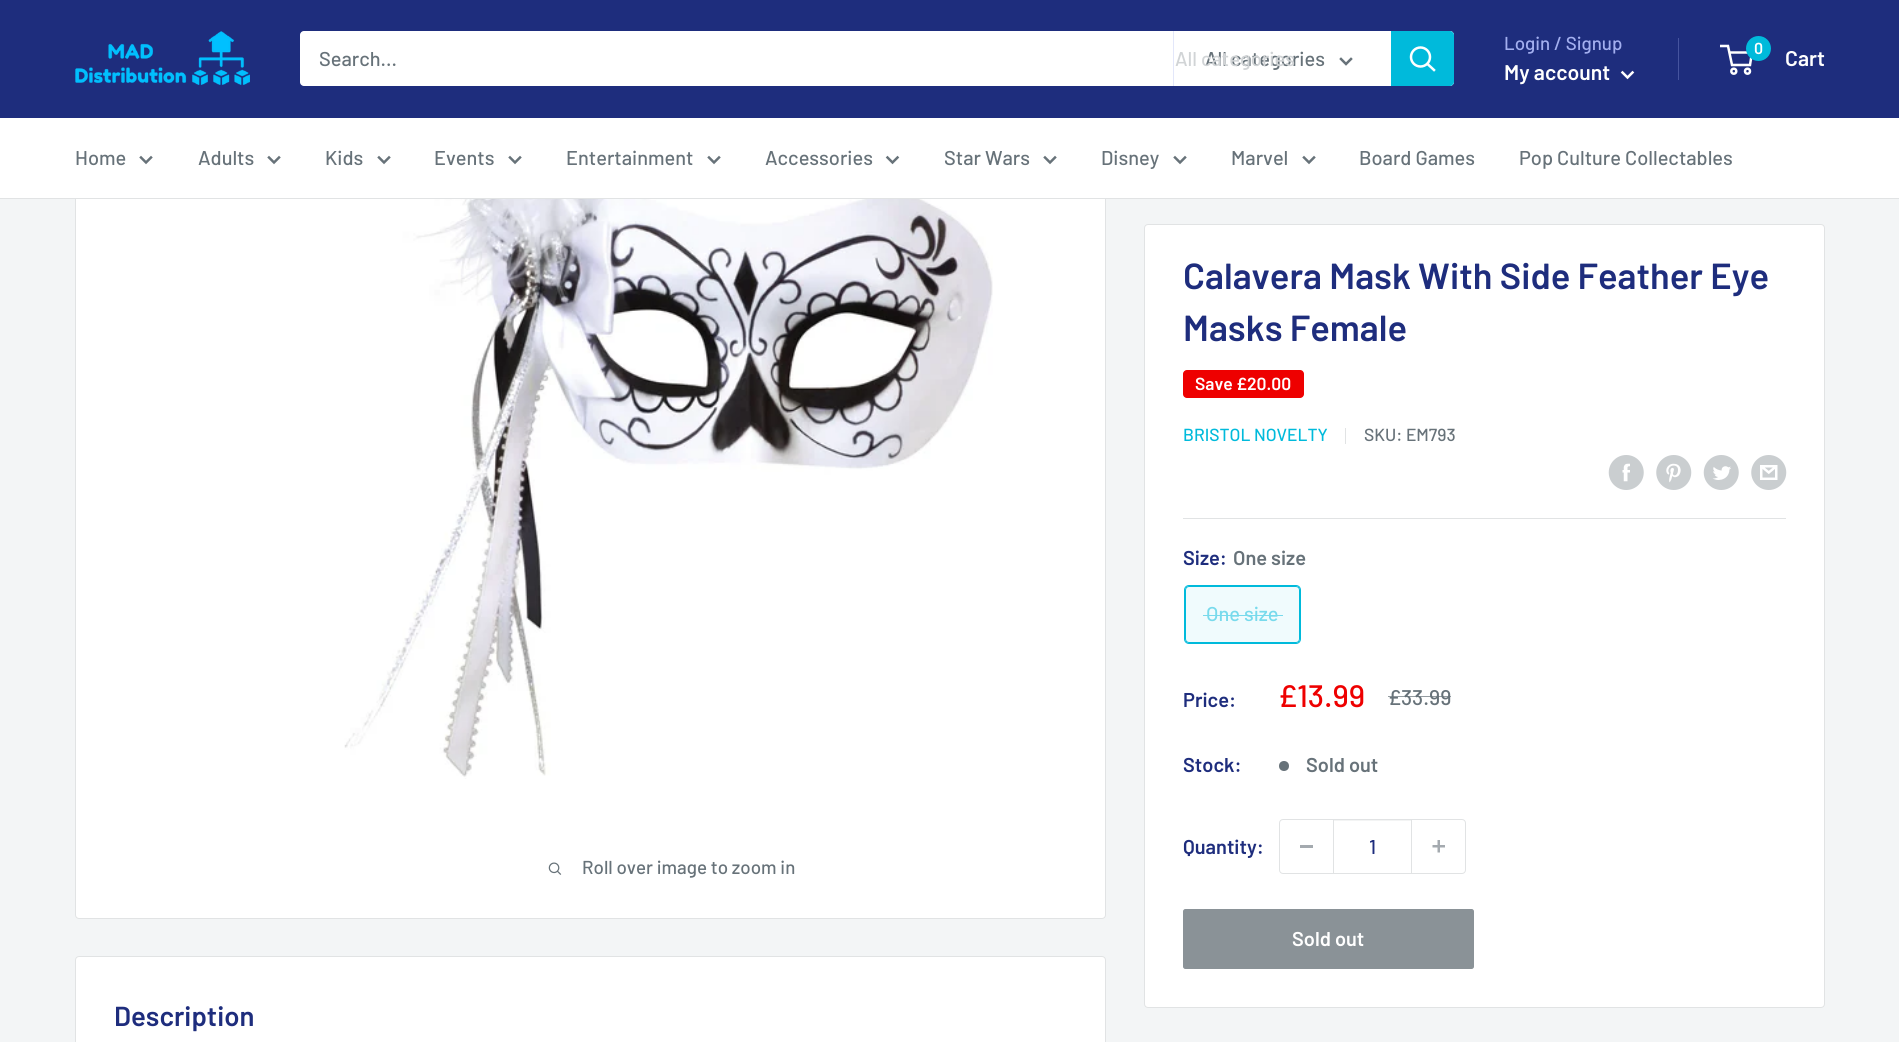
#include <cairo/cairo.h>
#include <math.h>
#include <stddef.h>

typedef struct { double x, y; const char *s; } line_t;
typedef struct { double x, y, w, h; unsigned color; } box_t;
static cairo_t *cr;

static void rgb(unsigned color)
{
	cairo_set_source_rgb(cr, (color >> 16) / 255.0, (color >> 8 & 255) / 255.0, (color & 255) / 255.0);
}

static void rrect(double x, double y, double w, double h, double r)
{
	cairo_new_sub_path(cr);
	cairo_arc(cr, x + w - r, y + h - r, r, 0, M_PI / 2);
	cairo_arc(cr, x + r, y + h - r, r, M_PI / 2, M_PI);
	cairo_arc(cr, x + r, y + r, r, M_PI, 1.5 * M_PI);
	cairo_arc(cr, x + w - r, y + r, r, 1.5 * M_PI, 2 * M_PI);
	cairo_close_path(cr);
}

static void image(const char *path, double x, double y, double w, double h)
{
	cairo_surface_t *image = cairo_image_surface_create_from_png(path);
	cairo_save(cr);
	cairo_set_source_surface(cr, image, x, y);
	cairo_rectangle(cr, x, y, w, h);
	cairo_fill(cr);
	cairo_restore(cr);
	cairo_surface_destroy(image);
}

int main(void) {
	cairo_surface_t *surface = cairo_image_surface_create(CAIRO_FORMAT_RGB24, 1899, 1042);
	cr = cairo_create(surface);
	cairo_font_options_t *options = cairo_font_options_create();
	cairo_font_options_set_hint_metrics(options, CAIRO_HINT_METRICS_OFF);
	cairo_font_options_set_hint_style(options, CAIRO_HINT_STYLE_NONE);
	cairo_set_font_options(cr, options);
	cairo_set_miter_limit(cr, 4);
	rgb(0xf3f5f6);
	cairo_paint(cr);
	rgb(0xffffff);
	rrect(75.5, -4.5, 1030, 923, 3.5);
	cairo_fill_preserve(cr);
	rgb(0xe1e3e4);
	cairo_set_line_width(cr, 1);
	cairo_stroke(cr);
	rgb(0x1e2d7d);
	cairo_rectangle(cr, 0, 0, 1899, 118);
	cairo_fill(cr);
	image("img/1.png", 75, 31, 175, 54);
	rgb(0xffffff);
	rrect(300, 31, 1154, 55, 4);
	cairo_fill(cr);
	rgb(0xe3e7fa);
	cairo_rectangle(cr, 1173, 31, 1, 55);
	cairo_fill(cr);
	cairo_new_path(cr);
	cairo_move_to(cr, 1351, 59);
	cairo_line_to(cr, 1346, 64);
	cairo_line_to(cr, 1341, 59);
	rgb(0x677279);
	cairo_set_line_width(cr, 2.5);
	cairo_set_line_cap(cr, CAIRO_LINE_CAP_SQUARE);
	cairo_stroke(cr);
	rgb(0x00badb);
	cairo_new_path(cr);
	cairo_move_to(cr, 1391, 31);
	cairo_line_to(cr, 1450, 31);
	cairo_curve_to(cr, 1452, 31, 1454, 33, 1454, 35);
	cairo_line_to(cr, 1454, 82);
	cairo_curve_to(cr, 1454, 84, 1452, 86, 1450, 86);
	cairo_line_to(cr, 1391, 86);
	cairo_close_path(cr);
	cairo_fill(cr);
	cairo_new_path(cr);
	cairo_move_to(cr, 1434, 70);
	cairo_line_to(cr, 1427.5, 64);
	rgb(0xffffff);
	cairo_stroke(cr);
	cairo_arc(cr, 1420.5, 57, 9.5, 0, 2 * M_PI);
	cairo_set_line_cap(cr, CAIRO_LINE_CAP_BUTT);
	cairo_stroke(cr);
	rgb(0x46549f);
	cairo_rectangle(cr, 1678, 38, 1, 42);
	cairo_fill(cr);
	cairo_new_path(cr);
	cairo_move_to(cr, 1632.5, 72.5);
	cairo_line_to(cr, 1627.5, 77.5);
	cairo_line_to(cr, 1622.5, 72.5);
	rgb(0xffffff);
	cairo_set_line_cap(cr, CAIRO_LINE_CAP_SQUARE);
	cairo_stroke(cr);
	cairo_arc(cr, 1733.8, 71.2, 2.5, 0, 2 * M_PI);
	cairo_set_line_cap(cr, CAIRO_LINE_CAP_BUTT);
	cairo_stroke(cr);
	cairo_arc(cr, 1747.5, 71.2, 2.5, 0, 2 * M_PI);
	cairo_stroke(cr);
	cairo_new_path(cr);
	cairo_move_to(cr, 1729, 52.5);
	cairo_line_to(cr, 1752, 52.5);
	cairo_line_to(cr, 1750, 65);
	cairo_line_to(cr, 1732, 65);
	cairo_line_to(cr, 1728, 46);
	cairo_line_to(cr, 1720, 46);
	cairo_stroke(cr);
	rgb(0x00badb);
	cairo_arc(cr, 1758.5, 48.5, 12.5, 0, 2 * M_PI);
	cairo_fill(cr);
	rgb(0xffffff);
	cairo_rectangle(cr, 0, 118, 1899, 80);
	cairo_fill(cr);
	rgb(0xe1e3e4);
	cairo_rectangle(cr, 0, 198, 1899, 1);
	cairo_fill(cr);
	cairo_new_path(cr);
	cairo_move_to(cr, 151, 157.5);
	cairo_line_to(cr, 146, 162.5);
	cairo_line_to(cr, 141, 157.5);
	rgb(0x677279);
	cairo_set_line_cap(cr, CAIRO_LINE_CAP_SQUARE);
	cairo_stroke(cr);
	cairo_new_path(cr);
	cairo_move_to(cr, 279, 157.5);
	cairo_line_to(cr, 274, 162.5);
	cairo_line_to(cr, 269, 157.5);
	cairo_stroke(cr);
	cairo_new_path(cr);
	cairo_move_to(cr, 389, 157.5);
	cairo_line_to(cr, 384, 162.5);
	cairo_line_to(cr, 379, 157.5);
	cairo_stroke(cr);
	cairo_new_path(cr);
	cairo_move_to(cr, 520, 157.5);
	cairo_line_to(cr, 515, 162.5);
	cairo_line_to(cr, 510, 157.5);
	cairo_stroke(cr);
	cairo_new_path(cr);
	cairo_move_to(cr, 719, 157.5);
	cairo_line_to(cr, 714, 162.5);
	cairo_line_to(cr, 709, 157.5);
	cairo_stroke(cr);
	cairo_new_path(cr);
	cairo_move_to(cr, 897.5, 157.5);
	cairo_line_to(cr, 892.5, 162.5);
	cairo_line_to(cr, 887.5, 157.5);
	cairo_stroke(cr);
	cairo_new_path(cr);
	cairo_move_to(cr, 1055, 157.5);
	cairo_line_to(cr, 1050, 162.5);
	cairo_line_to(cr, 1045, 157.5);
	cairo_stroke(cr);
	cairo_new_path(cr);
	cairo_move_to(cr, 1185, 157.5);
	cairo_line_to(cr, 1180, 162.5);
	cairo_line_to(cr, 1175, 157.5);
	cairo_stroke(cr);
	cairo_new_path(cr);
	cairo_move_to(cr, 1314, 157.5);
	cairo_line_to(cr, 1309, 162.5);
	cairo_line_to(cr, 1304, 157.5);
	cairo_stroke(cr);
	image("img/2.png", 344, 199, 649, 580);
	image("img/3.png", 548, 862, 14, 13);
	rgb(0xffffff);
	rrect(1144.5, 224.5, 680, 783, 3.5);
	cairo_fill_preserve(cr);
	rgb(0xe1e3e4);
	cairo_set_line_width(cr, 1);
	cairo_set_line_cap(cr, CAIRO_LINE_CAP_BUTT);
	cairo_stroke(cr);
	rgb(0xee0000);
	rrect(1183, 370, 121, 28, 4);
	cairo_fill(cr);
	rgb(0xe1e3e4);
	cairo_rectangle(cr, 1345, 428, 1, 16);
	cairo_fill(cr);
	image("img/4.png", 1608, 455, 36, 35);
	image("img/5.png", 1656, 455, 36, 35);
	image("img/6.png", 1703, 455, 36, 35);
	image("img/7.png", 1751, 455, 36, 35);
	cairo_rectangle(cr, 1183, 518, 603, 1);
	cairo_fill(cr);
	rrect(1184.5, 585.5, 116, 58, 4.5);
	rgb(0x00badb);
	cairo_stroke(cr);
	cairo_set_source_rgba(cr, 0, 0.729, 0.859, 0.06);
	cairo_rectangle(cr, 1185, 586, 115, 57);
	cairo_fill(cr);
	rrect(1185.5, 586.5, 114, 56, 3.5);
	rgb(0x00badb);
	cairo_stroke(cr);
	rgb(0x78daec);
	cairo_rectangle(cr, 1203, 615, 80, 1);
	cairo_fill(cr);
	rgb(0x677279);
	cairo_arc(cr, 1284, 766, 5, 0, 2 * M_PI);
	cairo_fill(cr);
	rrect(1279.5, 819.5, 186, 54, 3.5);
	rgb(0xe1e3e4);
	cairo_stroke(cr);
	{
		static const box_t items[] = {
			{1300, 845, 13, 3, 0xa4aaaf},
			{1334, 820, 77, 1, 0xf3f4f4},
			{1411, 820, 1, 53, 0xe1e3e4},
			{1333, 820, 1, 53, 0xe1e3e4},
		};
		for (size_t i = 0; i < sizeof items / sizeof *items; i++) {
			rgb(items[i].color);
			cairo_rectangle(cr, items[i].x, items[i].y, items[i].w, items[i].h);
			cairo_fill(cr);
		}
	}
	image("img/8.png", 1432, 840, 13, 13);
	rgb(0x8a9297);
	rrect(1183.5, 909.5, 290, 59, 2);
	cairo_fill_preserve(cr);
	cairo_stroke(cr);
	rgb(0xffffff);
	rrect(75.5, 956.5, 1030, 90, 3.5);
	cairo_fill_preserve(cr);
	rgb(0xe1e3e4);
	cairo_stroke(cr);
	cairo_select_font_face(cr, "Barlow Medium", CAIRO_FONT_SLANT_NORMAL, CAIRO_FONT_WEIGHT_NORMAL);
	cairo_set_font_size(cr, 20);
	rgb(0x677279);
	cairo_move_to(cr, 319, 66);
	cairo_show_text(cr, "Search...");
	cairo_move_to(cr, 1205, 66);
	cairo_show_text(cr, "All categories");
	rgb(0xd1d4d6);
	cairo_move_to(cr, 1175, 66);
	cairo_show_text(cr, "All categories");
	cairo_set_font_size(cr, 18.75);
	rgb(0xa3afef);
	cairo_move_to(cr, 1504, 50);
	cairo_show_text(cr, "Login / Signup");
	cairo_select_font_face(cr, "Barlow SemiBold", CAIRO_FONT_SLANT_NORMAL, CAIRO_FONT_WEIGHT_NORMAL);
	cairo_set_font_size(cr, 21.25);
	rgb(0xffffff);
	cairo_move_to(cr, 1504, 80);
	cairo_show_text(cr, "My account");
	cairo_set_font_size(cr, 16);
	cairo_move_to(cr, 1754, 54);
	cairo_show_text(cr, "0");
	cairo_set_font_size(cr, 21.25);
	cairo_move_to(cr, 1785, 66);
	cairo_show_text(cr, "Cart");
	cairo_select_font_face(cr, "Barlow Medium", CAIRO_FONT_SLANT_NORMAL, CAIRO_FONT_WEIGHT_NORMAL);
	cairo_set_font_size(cr, 20);
	rgb(0x677279);
	{
		static const line_t items[] = {
			{75, 165, "Home"},
			{198, 165, "Adults"},
			{325, 165, "Kids"},
			{434, 165, "Events"},
			{566, 165, "Entertainment"},
			{765, 165, "Accessories"},
			{944, 165, "Star Wars"},
			{1101, 165, "Disney"},
			{1231, 165, "Marvel"},
			{1359, 165, "Board Games"},
			{1519, 165, "Pop Culture Collectables"},
		};
		for (size_t i = 0; i < sizeof items / sizeof *items; i++) {
			cairo_move_to(cr, items[i].x, items[i].y);
			cairo_show_text(cr, items[i].s);
		}
	}
	cairo_set_font_size(cr, 18.75);
	cairo_move_to(cr, 582, 874);
	cairo_show_text(cr, "Roll over image to zoom in");
	cairo_select_font_face(cr, "Barlow SemiBold", CAIRO_FONT_SLANT_NORMAL, CAIRO_FONT_WEIGHT_NORMAL);
	cairo_set_font_size(cr, 36.25);
	rgb(0x1e2d7d);
	cairo_move_to(cr, 1183, 289);
	cairo_show_text(cr, "Calavera Mask With Side Feather Eye");
	cairo_move_to(cr, 1183, 341);
	cairo_show_text(cr, "Masks Female");
	cairo_set_font_size(cr, 17.5);
	rgb(0xffffff);
	cairo_move_to(cr, 1195, 390);
	cairo_show_text(cr, "Save £20.00");
	cairo_select_font_face(cr, "Barlow Medium", CAIRO_FONT_SLANT_NORMAL, CAIRO_FONT_WEIGHT_NORMAL);
	rgb(0x00badb);
	cairo_move_to(cr, 1183, 441);
	cairo_show_text(cr, "BRISTOL NOVELTY");
	rgb(0x677279);
	cairo_move_to(cr, 1364, 441);
	cairo_show_text(cr, "SKU: EM793");
	cairo_select_font_face(cr, "Barlow SemiBold", CAIRO_FONT_SLANT_NORMAL, CAIRO_FONT_WEIGHT_NORMAL);
	cairo_set_font_size(cr, 20);
	rgb(0x1e2d7d);
	cairo_move_to(cr, 1183, 565);
	cairo_show_text(cr, "Size:");
	rgb(0x677279);
	cairo_move_to(cr, 1233, 565);
	cairo_show_text(cr, "One size");
	cairo_select_font_face(cr, "Barlow Medium", CAIRO_FONT_SLANT_NORMAL, CAIRO_FONT_WEIGHT_NORMAL);
	rgb(0x78daec);
	cairo_move_to(cr, 1206, 621);
	cairo_show_text(cr, "One size");
	cairo_select_font_face(cr, "Barlow SemiBold", CAIRO_FONT_SLANT_NORMAL, CAIRO_FONT_WEIGHT_NORMAL);
	rgb(0x1e2d7d);
	cairo_move_to(cr, 1183, 707);
	cairo_show_text(cr, "Price:");
	cairo_select_font_face(cr, "Barlow Medium", CAIRO_FONT_SLANT_NORMAL, CAIRO_FONT_WEIGHT_NORMAL);
	cairo_set_font_size(cr, 31);
	rgb(0xee0000);
	cairo_move_to(cr, 1278, 707);
	cairo_show_text(cr, "£13.99");
	cairo_set_font_size(cr, 21.25);
	rgb(0x677279);
	cairo_move_to(cr, 1388, 705);
	cairo_show_text(cr, "£33.99");
	cairo_set_source_rgba(cr, 0.404, 0.447, 0.475, 0.7);
	cairo_rectangle(cr, 1388, 696, 63, 1);
	cairo_fill(cr);
	cairo_select_font_face(cr, "Barlow SemiBold", CAIRO_FONT_SLANT_NORMAL, CAIRO_FONT_WEIGHT_NORMAL);
	cairo_set_font_size(cr, 20);
	rgb(0x1e2d7d);
	cairo_move_to(cr, 1183, 772);
	cairo_show_text(cr, "Stock:");
	rgb(0x677279);
	cairo_move_to(cr, 1306, 772);
	cairo_show_text(cr, "Sold out");
	rgb(0x1e2d7d);
	cairo_move_to(cr, 1183, 854);
	cairo_show_text(cr, "Quantity:");
	cairo_select_font_face(cr, "Barlow Medium", CAIRO_FONT_SLANT_NORMAL, CAIRO_FONT_WEIGHT_NORMAL);
	cairo_move_to(cr, 1369, 854);
	cairo_show_text(cr, "1");
	cairo_select_font_face(cr, "Barlow SemiBold", CAIRO_FONT_SLANT_NORMAL, CAIRO_FONT_WEIGHT_NORMAL);
	rgb(0xffffff);
	cairo_move_to(cr, 1292, 946);
	cairo_show_text(cr, "Sold out");
	cairo_set_font_size(cr, 27.5);
	rgb(0x1e2d7d);
	cairo_move_to(cr, 114, 1026);
	cairo_show_text(cr, "Description");
	cairo_surface_write_to_png(surface, "page.png");
	cairo_font_options_destroy(options);
	cairo_destroy(cr);
	cairo_surface_destroy(surface);
	return 0;
}
